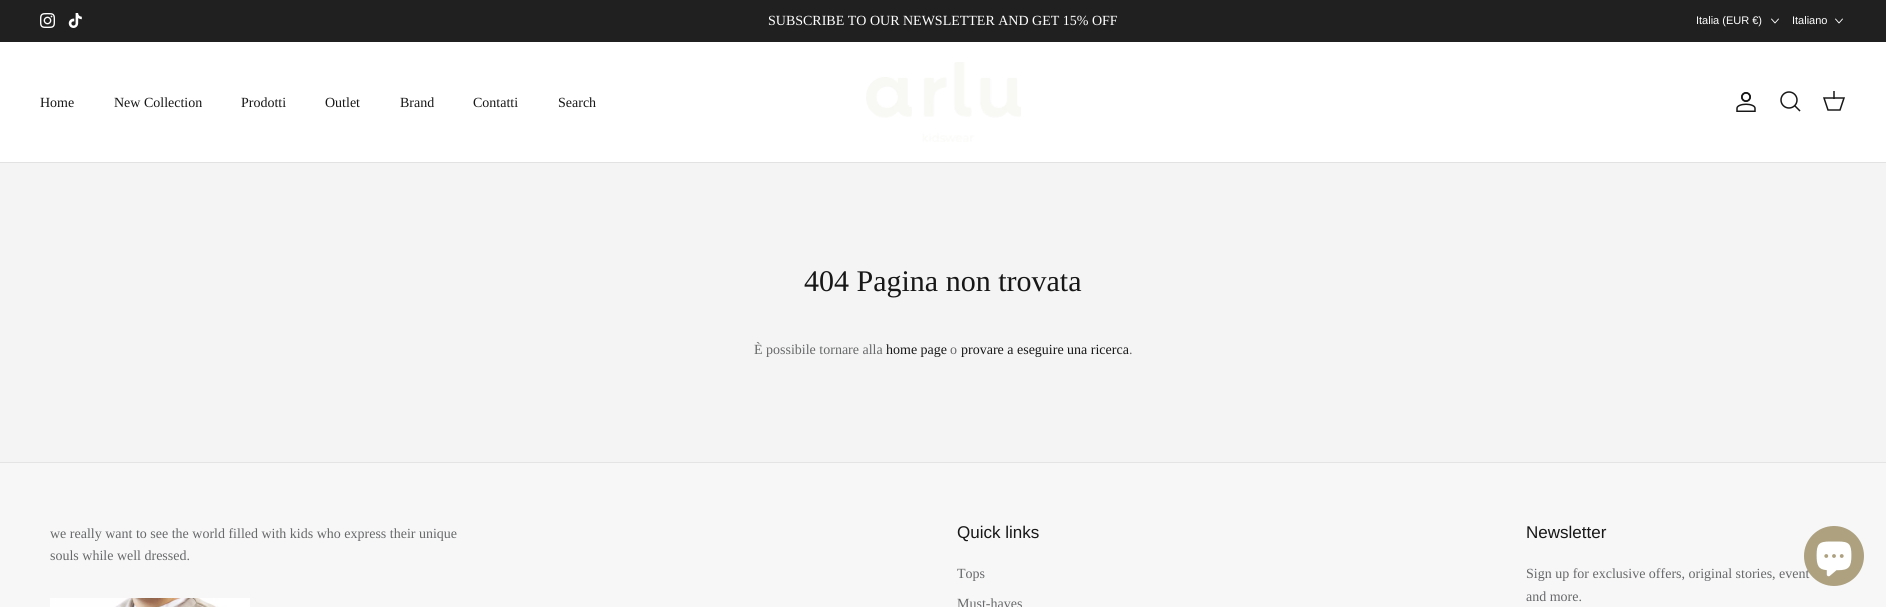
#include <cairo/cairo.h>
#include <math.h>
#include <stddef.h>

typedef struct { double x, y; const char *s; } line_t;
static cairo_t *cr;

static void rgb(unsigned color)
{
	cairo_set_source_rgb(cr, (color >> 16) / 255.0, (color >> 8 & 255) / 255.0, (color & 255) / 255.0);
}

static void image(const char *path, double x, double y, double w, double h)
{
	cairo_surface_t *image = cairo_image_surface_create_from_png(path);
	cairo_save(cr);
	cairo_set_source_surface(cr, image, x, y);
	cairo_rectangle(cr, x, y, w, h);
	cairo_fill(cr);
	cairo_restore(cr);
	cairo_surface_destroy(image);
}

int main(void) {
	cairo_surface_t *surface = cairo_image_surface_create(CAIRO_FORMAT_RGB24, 1886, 607);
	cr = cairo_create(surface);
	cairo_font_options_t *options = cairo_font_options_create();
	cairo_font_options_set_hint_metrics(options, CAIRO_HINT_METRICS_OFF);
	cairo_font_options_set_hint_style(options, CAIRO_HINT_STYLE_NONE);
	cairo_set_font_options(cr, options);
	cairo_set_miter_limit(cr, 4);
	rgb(0xf4f4f4);
	cairo_paint(cr);
	rgb(0x202020);
	cairo_rectangle(cr, 0, 0, 1886, 42);
	cairo_fill(cr);
	image("img/1.png", 40, 13, 15, 15);
	image("img/2.png", 68, 13, 14, 15);
	cairo_new_path(cr);
	cairo_move_to(cr, 1771.5, 19);
	cairo_line_to(cr, 1775, 23);
	cairo_line_to(cr, 1778.5, 19);
	rgb(0xffffff);
	cairo_set_line_width(cr, 0.9);
	cairo_set_line_cap(cr, CAIRO_LINE_CAP_ROUND);
	cairo_set_line_join(cr, CAIRO_LINE_JOIN_ROUND);
	cairo_stroke(cr);
	cairo_new_path(cr);
	cairo_move_to(cr, 1835.5, 19);
	cairo_line_to(cr, 1839, 23);
	cairo_line_to(cr, 1842.5, 19);
	cairo_stroke(cr);
	cairo_rectangle(cr, 0, 42, 1886, 120);
	cairo_fill(cr);
	rgb(0xe2e2e2);
	cairo_rectangle(cr, 0, 162, 1886, 1);
	cairo_fill(cr);
	image("img/3.png", 866, 62, 155, 80);
	image("img/4.png", 1736, 92, 20, 20);
	cairo_arc(cr, 1789, 100, 8, 0, 2 * M_PI);
	rgb(0x171717);
	cairo_set_line_width(cr, 1.5);
	cairo_set_line_cap(cr, CAIRO_LINE_CAP_BUTT);
	cairo_set_line_join(cr, CAIRO_LINE_JOIN_MITER);
	cairo_stroke(cr);
	cairo_new_path(cr);
	cairo_move_to(cr, 1795, 106);
	cairo_line_to(cr, 1799.5, 110.5);
	cairo_set_line_cap(cr, CAIRO_LINE_CAP_SQUARE);
	cairo_stroke(cr);
	cairo_new_path(cr);
	cairo_move_to(cr, 1824, 98);
	cairo_line_to(cr, 1844, 98);
	cairo_line_to(cr, 1840, 110);
	cairo_line_to(cr, 1828, 110);
	cairo_close_path(cr);
	cairo_set_line_cap(cr, CAIRO_LINE_CAP_BUTT);
	cairo_stroke(cr);
	cairo_set_source_rgba(cr, 0.09, 0.09, 0.09, 0.75);
	cairo_rectangle(cr, 1833, 91, 2, 8);
	cairo_fill(cr);
	rgb(0xf7f7f8);
	cairo_rectangle(cr, 0, 463, 1886, 144);
	cairo_fill(cr);
	rgb(0xe4e4e4);
	cairo_rectangle(cr, 0, 462, 1886, 1);
	cairo_fill(cr);
	image("img/5.png", 50, 598, 200, 9);
	cairo_select_font_face(cr, "Liberation Serif", CAIRO_FONT_SLANT_NORMAL, CAIRO_FONT_WEIGHT_NORMAL);
	cairo_set_font_size(cr, 14);
	rgb(0xffffff);
	cairo_move_to(cr, 768, 25);
	cairo_show_text(cr, "SUBSCRIBE TO OUR NEWSLETTER AND GET 15% OFF");
	cairo_select_font_face(cr, "Arimo", CAIRO_FONT_SLANT_NORMAL, CAIRO_FONT_WEIGHT_NORMAL);
	cairo_set_font_size(cr, 11);
	cairo_move_to(cr, 1696, 24);
	cairo_show_text(cr, "Italia (EUR €)");
	cairo_move_to(cr, 1792, 24);
	cairo_show_text(cr, "Italiano");
	cairo_select_font_face(cr, "Liberation Serif", CAIRO_FONT_SLANT_NORMAL, CAIRO_FONT_WEIGHT_NORMAL);
	cairo_set_font_size(cr, 14);
	rgb(0x171717);
	{
		static const line_t items[] = {
			{40, 107, "Home"},
			{114, 107, "New Collection"},
			{241, 107, "Prodotti"},
			{325, 107, "Outlet"},
			{400, 107, "Brand"},
			{473, 107, "Contatti"},
			{558, 107, "Search"},
		};
		for (size_t i = 0; i < sizeof items / sizeof *items; i++) {
			cairo_move_to(cr, items[i].x, items[i].y);
			cairo_show_text(cr, items[i].s);
		}
	}
	cairo_set_font_size(cr, 30);
	cairo_move_to(cr, 804, 291);
	cairo_show_text(cr, "404 Pagina non trovata");
	cairo_set_font_size(cr, 14);
	rgb(0x676869);
	cairo_move_to(cr, 754, 354);
	cairo_show_text(cr, "È possibile tornare alla");
	rgb(0x171717);
	cairo_move_to(cr, 886, 354);
	cairo_show_text(cr, "home page");
	rgb(0x676869);
	cairo_move_to(cr, 950, 354);
	cairo_show_text(cr, "o");
	rgb(0x171717);
	cairo_move_to(cr, 961, 354);
	cairo_show_text(cr, "provare a eseguire una ricerca");
	rgb(0x676869);
	{
		static const line_t items[] = {
			{1129, 354, "."},
			{50, 538, "we really want to see the world filled with kids who express their unique"},
			{50, 560, "souls while well dressed."},
		};
		for (size_t i = 0; i < sizeof items / sizeof *items; i++) {
			cairo_move_to(cr, items[i].x, items[i].y);
			cairo_show_text(cr, items[i].s);
		}
	}
	cairo_select_font_face(cr, "Arimo", CAIRO_FONT_SLANT_NORMAL, CAIRO_FONT_WEIGHT_NORMAL);
	cairo_set_font_size(cr, 17);
	rgb(0x171717);
	cairo_move_to(cr, 957, 538);
	cairo_show_text(cr, "Quick links");
	cairo_select_font_face(cr, "Liberation Serif", CAIRO_FONT_SLANT_NORMAL, CAIRO_FONT_WEIGHT_NORMAL);
	cairo_set_font_size(cr, 14);
	rgb(0x676869);
	cairo_move_to(cr, 957, 578);
	cairo_show_text(cr, "Tops");
	cairo_move_to(cr, 957, 608);
	cairo_show_text(cr, "Must-haves");
	cairo_select_font_face(cr, "Arimo", CAIRO_FONT_SLANT_NORMAL, CAIRO_FONT_WEIGHT_NORMAL);
	cairo_set_font_size(cr, 17);
	rgb(0x171717);
	cairo_move_to(cr, 1526, 538);
	cairo_show_text(cr, "Newsletter");
	cairo_select_font_face(cr, "Liberation Serif", CAIRO_FONT_SLANT_NORMAL, CAIRO_FONT_WEIGHT_NORMAL);
	cairo_set_font_size(cr, 14);
	rgb(0x676869);
	cairo_move_to(cr, 1526, 578);
	cairo_show_text(cr, "Sign up for exclusive offers, original stories, event");
	cairo_move_to(cr, 1526, 601);
	cairo_show_text(cr, "and more.");
	rgb(0xada180);
	cairo_new_path(cr);
	cairo_arc(cr, 1834, 556, 30, 0, 2 * M_PI);
	cairo_fill(cr);
	image("img/6.png", 1816, 541, 36, 36);
	cairo_surface_write_to_png(surface, "page.png");
	cairo_font_options_destroy(options);
	cairo_destroy(cr);
	cairo_surface_destroy(surface);
	return 0;
}
